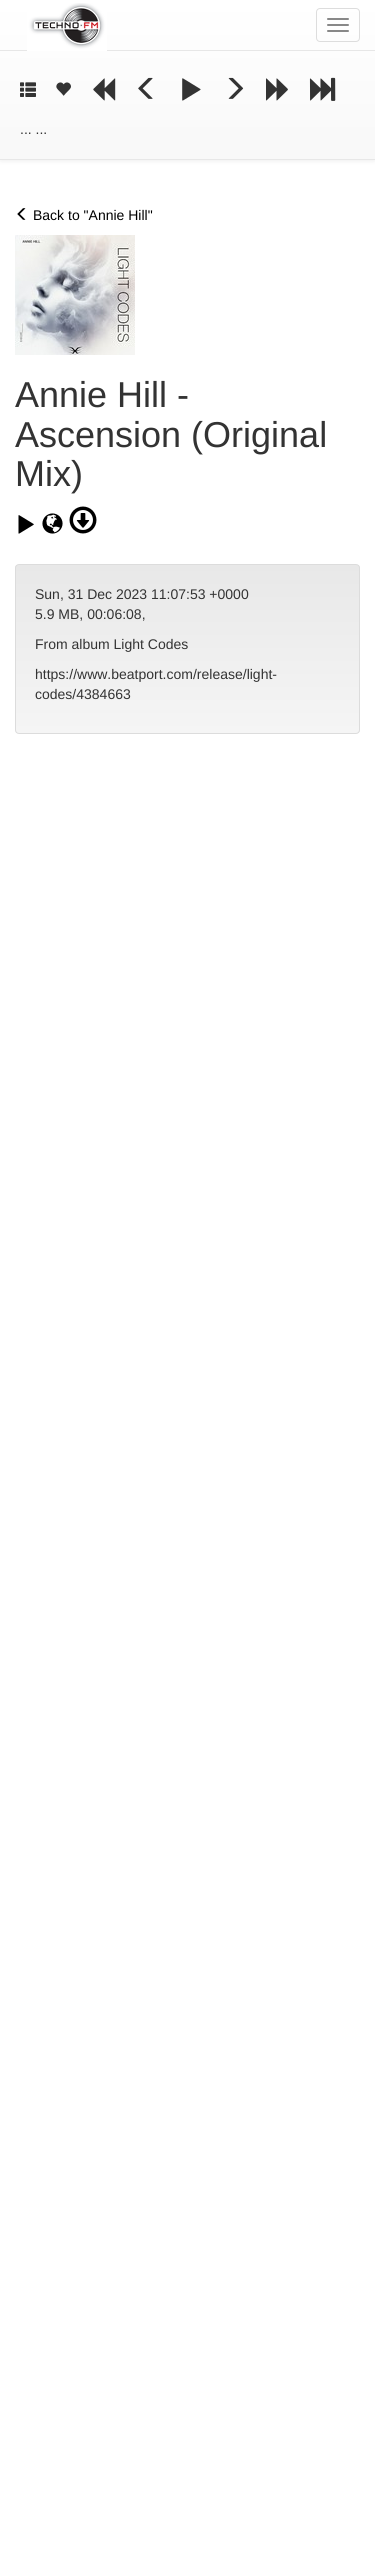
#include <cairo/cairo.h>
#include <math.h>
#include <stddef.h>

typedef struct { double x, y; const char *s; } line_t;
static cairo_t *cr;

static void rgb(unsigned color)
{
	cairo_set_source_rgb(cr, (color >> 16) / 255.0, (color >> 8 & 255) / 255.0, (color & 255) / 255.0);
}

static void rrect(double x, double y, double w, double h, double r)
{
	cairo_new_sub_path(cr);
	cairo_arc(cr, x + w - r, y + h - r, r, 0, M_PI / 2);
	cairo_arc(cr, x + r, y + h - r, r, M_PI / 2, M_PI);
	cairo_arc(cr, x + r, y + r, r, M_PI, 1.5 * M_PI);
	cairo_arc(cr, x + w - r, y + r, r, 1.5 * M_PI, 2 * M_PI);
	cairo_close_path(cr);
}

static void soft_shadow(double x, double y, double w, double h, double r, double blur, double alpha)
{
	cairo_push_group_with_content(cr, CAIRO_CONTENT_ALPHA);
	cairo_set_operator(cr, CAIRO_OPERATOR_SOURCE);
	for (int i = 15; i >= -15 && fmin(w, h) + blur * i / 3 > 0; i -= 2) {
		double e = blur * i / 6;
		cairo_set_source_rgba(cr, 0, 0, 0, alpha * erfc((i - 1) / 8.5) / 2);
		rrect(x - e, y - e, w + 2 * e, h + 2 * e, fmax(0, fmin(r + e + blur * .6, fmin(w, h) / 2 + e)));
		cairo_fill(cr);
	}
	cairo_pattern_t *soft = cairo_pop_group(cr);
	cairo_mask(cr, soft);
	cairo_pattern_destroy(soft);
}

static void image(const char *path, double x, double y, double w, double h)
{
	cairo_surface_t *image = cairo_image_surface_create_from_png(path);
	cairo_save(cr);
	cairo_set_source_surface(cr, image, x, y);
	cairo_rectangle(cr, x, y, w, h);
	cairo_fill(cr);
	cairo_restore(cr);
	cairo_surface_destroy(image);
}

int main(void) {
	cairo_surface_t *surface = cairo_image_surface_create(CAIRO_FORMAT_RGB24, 375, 2553);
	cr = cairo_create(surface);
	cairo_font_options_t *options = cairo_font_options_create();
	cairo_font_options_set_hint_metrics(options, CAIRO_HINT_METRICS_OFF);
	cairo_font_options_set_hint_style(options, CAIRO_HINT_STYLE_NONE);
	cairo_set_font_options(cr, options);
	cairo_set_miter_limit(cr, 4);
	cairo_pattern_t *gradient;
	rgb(0xffffff);
	cairo_paint(cr);
	rgb(0x000000);
	soft_shadow(0, 1, 375, 160, 0, 2.5, 0.07);
	gradient = cairo_pattern_create_linear(188, 0, 188, 159);
	cairo_pattern_add_color_stop_rgba(gradient, 0, 1, 1, 1, 1);
	cairo_pattern_add_color_stop_rgba(gradient, 1, 0.973, 0.973, 0.973, 1);
	cairo_set_source(cr, gradient);
	cairo_pattern_destroy(gradient);
	cairo_rectangle(cr, 0, 0, 375, 159);
	cairo_fill(cr);
	rgb(0xe7e7e7);
	cairo_rectangle(cr, 0, 159, 375, 1);
	cairo_fill(cr);
	cairo_rectangle(cr, 0, 50, 375, 1);
	cairo_fill(cr);
	image("img/1.png", 27, 3, 80, 48);
	rrect(316.5, 8.5, 43, 33, 3.5);
	rgb(0xdddddd);
	cairo_set_line_width(cr, 1);
	cairo_stroke(cr);
	rgb(0x888888);
	rrect(327, 18, 22, 2, 1);
	cairo_fill(cr);
	rrect(327, 24, 22, 2, 1);
	cairo_fill(cr);
	rrect(327, 30, 22, 2, 1);
	cairo_fill(cr);
	image("img/2.png", 20, 82, 16, 15);
	image("img/3.png", 56, 82, 15, 14);
	image("img/4.png", 93, 78, 23, 23);
	image("img/5.png", 138, 77, 15, 22);
	image("img/6.png", 182, 78, 19, 23);
	image("img/7.png", 228, 77, 16, 22);
	image("img/8.png", 266, 78, 22, 23);
	image("img/9.png", 309, 77, 27, 24);
	image("img/10.png", 17, 208, 9, 12);
	image("img/11.png", 15, 235, 120, 120);
	image("img/12.png", 18, 515, 16, 19);
	image("img/13.png", 42, 513, 21, 21);
	image("img/14.png", 69, 506, 28, 28);
	cairo_save(cr);
	rrect(15, 564, 345, 170, 4);
	cairo_clip(cr);
	gradient = cairo_pattern_create_linear(188, 565, 188, 733);
	cairo_pattern_add_color_stop_rgba(gradient, 0, 0.91, 0.91, 0.91, 1);
	cairo_pattern_add_color_stop_rgba(gradient, 1, 0.961, 0.961, 0.961, 1);
	cairo_set_source(cr, gradient);
	cairo_pattern_destroy(gradient);
	cairo_rectangle(cr, 15, 565, 345, 168);
	cairo_fill(cr);
	cairo_restore(cr);
	rrect(15.5, 564.5, 344, 169, 3.5);
	rgb(0xdcdcdc);
	cairo_stroke(cr);
	cairo_select_font_face(cr, "Liberation Sans", CAIRO_FONT_SLANT_NORMAL, CAIRO_FONT_WEIGHT_NORMAL);
	cairo_set_font_size(cr, 14);
	rgb(0x333333);
	cairo_move_to(cr, 20, 134);
	cairo_show_text(cr, "... ...");
	rgb(0x000000);
	cairo_move_to(cr, 33, 220);
	cairo_show_text(cr, "Back to \"Annie Hill\"");
	cairo_set_font_size(cr, 36);
	rgb(0x333333);
	{
		static const line_t items[] = {
			{15, 407, "Annie Hill -"},
			{15, 447, "Ascension (Original"},
			{15, 486, "Mix)"},
		};
		for (size_t i = 0; i < sizeof items / sizeof *items; i++) {
			cairo_move_to(cr, items[i].x, items[i].y);
			cairo_show_text(cr, items[i].s);
		}
	}
	cairo_set_font_size(cr, 14);
	{
		static const line_t items[] = {
			{35, 599, "Sun, 31 Dec 2023 11:07:53 +0000"},
			{35, 619, "5.9 MB, 00:06:08,"},
			{35, 649, "From album Light Codes"},
			{35, 679, "https://www.beatport.com/release/light-"},
			{35, 699, "codes/4384663"},
		};
		for (size_t i = 0; i < sizeof items / sizeof *items; i++) {
			cairo_move_to(cr, items[i].x, items[i].y);
			cairo_show_text(cr, items[i].s);
		}
	}
	cairo_surface_write_to_png(surface, "page.png");
	cairo_font_options_destroy(options);
	cairo_destroy(cr);
	cairo_surface_destroy(surface);
	return 0;
}
